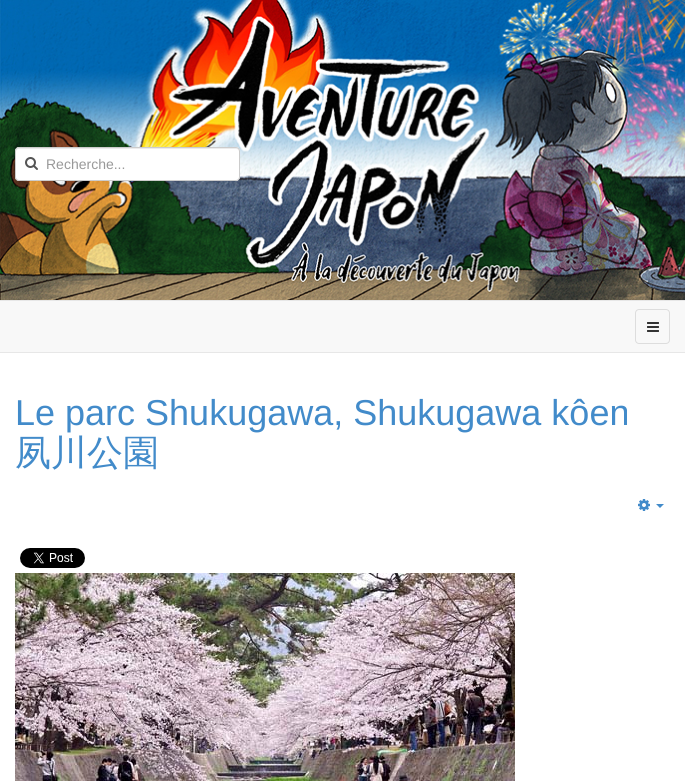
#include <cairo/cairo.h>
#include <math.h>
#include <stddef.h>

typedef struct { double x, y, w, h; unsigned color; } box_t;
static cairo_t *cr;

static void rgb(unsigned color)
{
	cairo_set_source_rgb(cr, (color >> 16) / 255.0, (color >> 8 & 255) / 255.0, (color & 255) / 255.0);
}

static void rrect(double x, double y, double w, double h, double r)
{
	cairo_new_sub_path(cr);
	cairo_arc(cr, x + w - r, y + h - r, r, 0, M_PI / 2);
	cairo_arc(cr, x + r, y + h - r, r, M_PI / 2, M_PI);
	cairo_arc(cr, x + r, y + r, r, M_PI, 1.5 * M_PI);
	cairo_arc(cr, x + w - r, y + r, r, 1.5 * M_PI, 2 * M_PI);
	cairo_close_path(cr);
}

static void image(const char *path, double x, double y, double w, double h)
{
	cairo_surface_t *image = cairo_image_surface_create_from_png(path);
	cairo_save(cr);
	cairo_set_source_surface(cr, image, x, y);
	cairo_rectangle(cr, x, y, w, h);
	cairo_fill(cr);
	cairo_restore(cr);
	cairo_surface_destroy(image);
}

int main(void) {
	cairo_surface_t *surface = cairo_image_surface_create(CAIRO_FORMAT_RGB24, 685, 781);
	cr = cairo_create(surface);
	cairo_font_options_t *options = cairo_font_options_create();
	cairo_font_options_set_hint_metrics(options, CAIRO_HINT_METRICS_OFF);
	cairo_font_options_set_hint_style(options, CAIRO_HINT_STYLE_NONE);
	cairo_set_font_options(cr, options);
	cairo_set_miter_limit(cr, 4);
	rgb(0xffffff);
	cairo_paint(cr);
	image("img/1.png", 0, 0, 685, 300);
	rgb(0xffffff);
	rrect(15, 147, 225, 34, 4);
	cairo_fill(cr);
	rgb(0xececec);
	cairo_new_path(cr);
	cairo_move_to(cr, 19, 149);
	cairo_line_to(cr, 236, 149);
	cairo_curve_to(cr, 238, 149, 239, 150, 239, 152);
	cairo_line_to(cr, 239, 151);
	cairo_curve_to(cr, 239, 149, 238, 148, 236, 148);
	cairo_line_to(cr, 19, 148);
	cairo_curve_to(cr, 17, 148, 16, 149, 16, 151);
	cairo_line_to(cr, 16, 152);
	cairo_curve_to(cr, 16, 150, 17, 149, 19, 149);
	cairo_close_path(cr);
	cairo_fill(cr);
	rrect(15.5, 147.5, 224, 33, 3.5);
	rgb(0xcccccc);
	cairo_set_line_width(cr, 1);
	cairo_stroke(cr);
	image("img/2.png", 25, 157, 13, 13);
	{
		static const box_t items[] = {
			{0, 301, 685, 51, 0xf8f8f8},
			{0, 300, 685, 1, 0xe7e7e7},
			{0, 352, 685, 1, 0xe7e7e7},
		};
		for (size_t i = 0; i < sizeof items / sizeof *items; i++) {
			rgb(items[i].color);
			cairo_rectangle(cr, items[i].x, items[i].y, items[i].w, items[i].h);
			cairo_fill(cr);
		}
	}
	rrect(635.5, 309.5, 34, 34, 3.5);
	rgb(0xdddddd);
	cairo_stroke(cr);
	image("img/3.png", 647, 322, 12, 10);
	image("img/4.png", 638, 499, 12, 12);
	rgb(0x428bca);
	cairo_new_path(cr);
	cairo_move_to(cr, 656, 504);
	cairo_line_to(cr, 664, 504);
	cairo_line_to(cr, 660, 508);
	cairo_close_path(cr);
	cairo_fill(cr);
	image("img/5.png", 20, 548, 65, 20);
	image("img/6.png", 15, 573, 500, 208);
	cairo_select_font_face(cr, "Liberation Sans", CAIRO_FONT_SLANT_NORMAL, CAIRO_FONT_WEIGHT_NORMAL);
	cairo_set_font_size(cr, 14);
	rgb(0x999999);
	cairo_move_to(cr, 46, 169);
	cairo_show_text(cr, "Recherche...");
	cairo_set_font_size(cr, 36);
	rgb(0x428bca);
	cairo_move_to(cr, 15, 425);
	cairo_show_text(cr, "Le parc Shukugawa, Shukugawa kôen");
	cairo_select_font_face(cr, "WenQuanYi Zen Hei Medium", CAIRO_FONT_SLANT_NORMAL, CAIRO_FONT_WEIGHT_NORMAL);
	cairo_move_to(cr, 15, 465);
	cairo_show_text(cr, "夙川公園");
	cairo_surface_write_to_png(surface, "page.png");
	cairo_font_options_destroy(options);
	cairo_destroy(cr);
	cairo_surface_destroy(surface);
	return 0;
}
